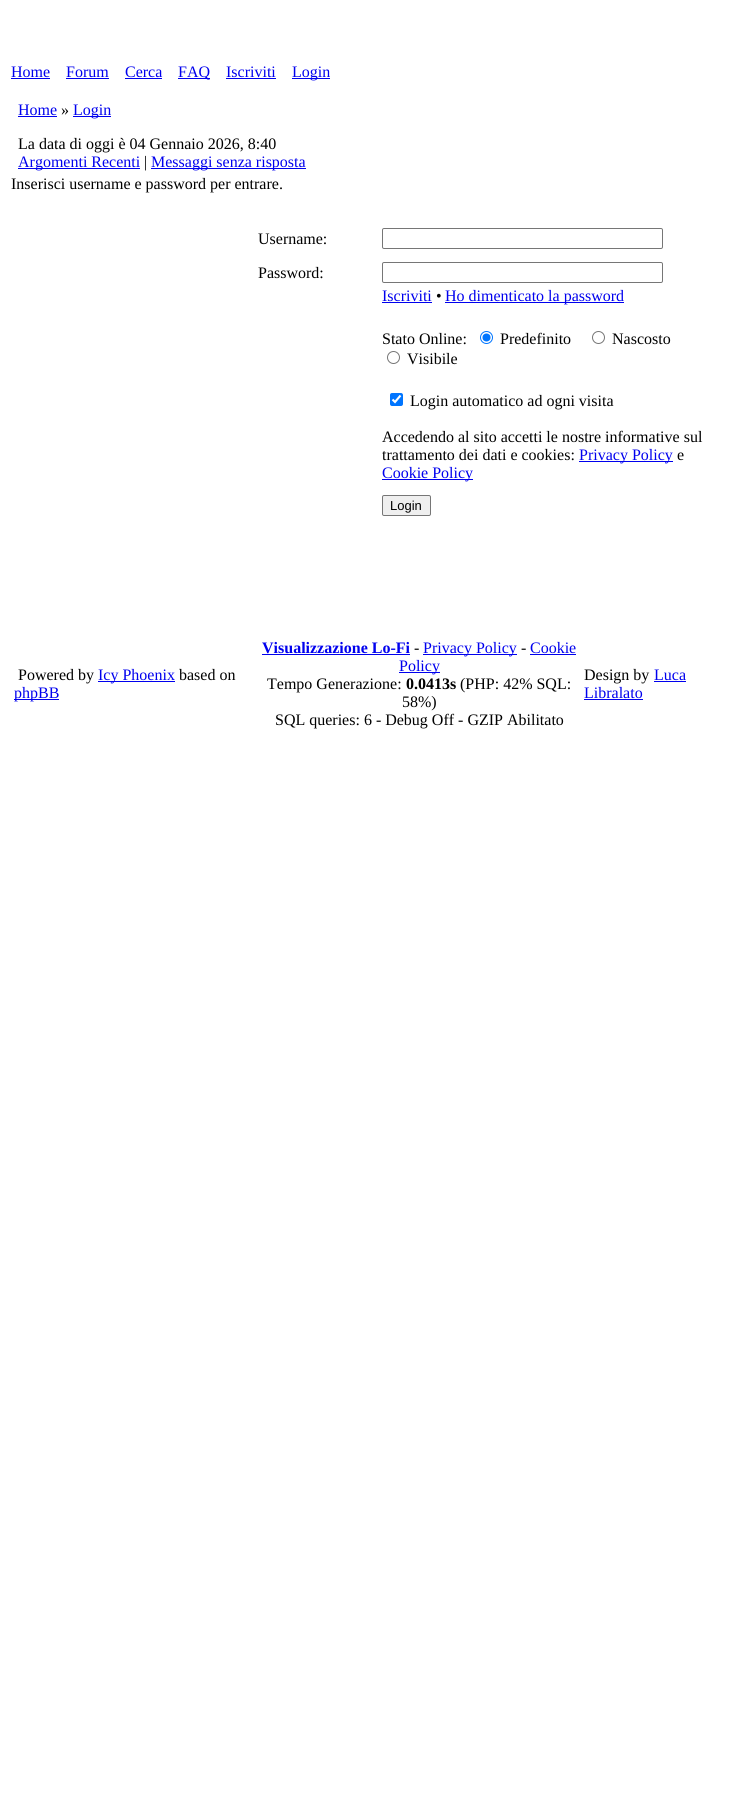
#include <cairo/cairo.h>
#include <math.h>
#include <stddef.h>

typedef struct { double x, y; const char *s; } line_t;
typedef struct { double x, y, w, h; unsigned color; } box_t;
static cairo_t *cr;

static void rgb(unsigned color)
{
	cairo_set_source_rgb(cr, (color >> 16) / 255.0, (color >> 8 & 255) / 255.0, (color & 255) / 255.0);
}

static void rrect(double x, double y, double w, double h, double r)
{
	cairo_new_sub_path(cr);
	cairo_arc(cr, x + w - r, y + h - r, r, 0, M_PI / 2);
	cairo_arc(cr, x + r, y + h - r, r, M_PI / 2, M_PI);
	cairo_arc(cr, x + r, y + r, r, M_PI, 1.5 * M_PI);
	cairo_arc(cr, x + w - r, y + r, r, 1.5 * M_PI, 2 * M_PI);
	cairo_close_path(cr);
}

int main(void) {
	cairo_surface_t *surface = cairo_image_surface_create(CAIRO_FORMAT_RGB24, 751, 1801);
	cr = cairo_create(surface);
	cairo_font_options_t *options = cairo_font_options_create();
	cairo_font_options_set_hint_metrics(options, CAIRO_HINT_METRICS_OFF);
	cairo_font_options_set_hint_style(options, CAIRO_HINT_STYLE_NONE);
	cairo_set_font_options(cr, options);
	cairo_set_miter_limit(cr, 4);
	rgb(0xffffff);
	cairo_paint(cr);
	{
		static const box_t items[] = {
			{11, 78, 39, 1, 0x0000ee},
			{66, 78, 43, 1, 0x0000ee},
			{125, 78, 37, 1, 0x0000ee},
			{178, 78, 32, 1, 0x0000ee},
			{226, 78, 50, 1, 0x0000ee},
			{292, 78, 38, 1, 0x0000ee},
			{18, 116, 39, 1, 0x0000ee},
			{73, 116, 38, 1, 0x0000ee},
			{18, 168, 122, 1, 0x0000ee},
			{151, 168, 155, 1, 0x0000ee},
		};
		for (size_t i = 0; i < sizeof items / sizeof *items; i++) {
			rgb(items[i].color);
			cairo_rectangle(cr, items[i].x, items[i].y, items[i].w, items[i].h);
			cairo_fill(cr);
		}
	}
	rrect(382.5, 228.5, 280, 20, 1.5);
	rgb(0x767676);
	cairo_set_line_width(cr, 1);
	cairo_stroke(cr);
	rrect(382.5, 262.5, 280, 20, 1.5);
	cairo_stroke(cr);
	rgb(0x0000ee);
	cairo_rectangle(cr, 382, 302, 50, 1);
	cairo_fill(cr);
	cairo_rectangle(cr, 445, 302, 179, 1);
	cairo_fill(cr);
	cairo_arc(cr, 486.5, 337.5, 6, 0, 2 * M_PI);
	rgb(0x0075ff);
	cairo_stroke(cr);
	cairo_arc(cr, 486.5, 337.5, 4, 0, 2 * M_PI);
	cairo_fill(cr);
	cairo_arc(cr, 598.5, 337.5, 6, 0, 2 * M_PI);
	rgb(0x767676);
	cairo_stroke(cr);
	cairo_arc(cr, 393.5, 357.5, 6, 0, 2 * M_PI);
	cairo_stroke(cr);
	rgb(0x0075ff);
	rrect(390, 393, 13, 13, 2);
	cairo_fill(cr);
	cairo_new_path(cr);
	cairo_move_to(cr, 392.5, 399.5);
	cairo_line_to(cr, 395, 402);
	cairo_line_to(cr, 400.5, 395.5);
	rgb(0xffffff);
	cairo_set_line_width(cr, 2.1);
	cairo_stroke(cr);
	rgb(0x0000ee);
	cairo_rectangle(cr, 579, 461, 94, 1);
	cairo_fill(cr);
	cairo_rectangle(cr, 382, 479, 91, 1);
	cairo_fill(cr);
	rgb(0xefefef);
	rrect(382.5, 495.5, 48, 20, 1.5);
	cairo_fill_preserve(cr);
	rgb(0x767676);
	cairo_set_line_width(cr, 1);
	cairo_stroke(cr);
	{
		static const box_t items[] = {
			{98, 681, 77, 1, 0x0000ee},
			{14, 699, 45, 1, 0x0000ee},
			{262, 654, 148, 1, 0x0000ee},
			{423, 654, 94, 1, 0x0000ee},
			{530, 654, 46, 1, 0x0000ee},
			{399, 672, 41, 1, 0x0000ee},
			{654, 681, 32, 1, 0x0000ee},
			{584, 699, 59, 1, 0x0000ee},
		};
		for (size_t i = 0; i < sizeof items / sizeof *items; i++) {
			rgb(items[i].color);
			cairo_rectangle(cr, items[i].x, items[i].y, items[i].w, items[i].h);
			cairo_fill(cr);
		}
	}
	cairo_select_font_face(cr, "Liberation Serif", CAIRO_FONT_SLANT_NORMAL, CAIRO_FONT_WEIGHT_NORMAL);
	cairo_set_font_size(cr, 16);
	{
		static const line_t items[] = {
			{11, 77, "Home"},
			{66, 77, "Forum"},
			{125, 77, "Cerca"},
			{178, 77, "FAQ"},
			{226, 77, "Iscriviti"},
			{292, 77, "Login"},
			{18, 115, "Home"},
		};
		for (size_t i = 0; i < sizeof items / sizeof *items; i++) {
			cairo_move_to(cr, items[i].x, items[i].y);
			cairo_show_text(cr, items[i].s);
		}
	}
	rgb(0x000000);
	cairo_move_to(cr, 61, 115);
	cairo_show_text(cr, "»");
	rgb(0x0000ee);
	cairo_move_to(cr, 73, 115);
	cairo_show_text(cr, "Login");
	rgb(0x000000);
	cairo_move_to(cr, 18, 149);
	cairo_show_text(cr, "La data di oggi è 04 Gennaio 2026, 8:40");
	rgb(0x0000ee);
	cairo_move_to(cr, 18, 167);
	cairo_show_text(cr, "Argomenti Recenti");
	rgb(0x000000);
	cairo_move_to(cr, 144, 167);
	cairo_show_text(cr, "|");
	rgb(0x0000ee);
	cairo_move_to(cr, 151, 167);
	cairo_show_text(cr, "Messaggi senza risposta");
	rgb(0x000000);
	{
		static const line_t items[] = {
			{11, 189, "Inserisci username e password per entrare."},
			{258, 244, "Username:"},
			{258, 278, "Password:"},
		};
		for (size_t i = 0; i < sizeof items / sizeof *items; i++) {
			cairo_move_to(cr, items[i].x, items[i].y);
			cairo_show_text(cr, items[i].s);
		}
	}
	rgb(0x0000ee);
	cairo_move_to(cr, 382, 301);
	cairo_show_text(cr, "Iscriviti");
	rgb(0x000000);
	cairo_move_to(cr, 436, 301);
	cairo_show_text(cr, "•");
	rgb(0x0000ee);
	cairo_move_to(cr, 445, 301);
	cairo_show_text(cr, "Ho dimenticato la password");
	rgb(0x000000);
	{
		static const line_t items[] = {
			{382, 344, "Stato Online:"},
			{500, 344, "Predefinito"},
			{612, 344, "Nascosto"},
			{407, 364, "Visibile"},
			{410, 406, "Login automatico ad ogni visita"},
			{382, 442, "Accedendo al sito accetti le nostre informative sul"},
			{382, 460, "trattamento dei dati e cookies:"},
		};
		for (size_t i = 0; i < sizeof items / sizeof *items; i++) {
			cairo_move_to(cr, items[i].x, items[i].y);
			cairo_show_text(cr, items[i].s);
		}
	}
	rgb(0x0000ee);
	cairo_move_to(cr, 579, 460);
	cairo_show_text(cr, "Privacy Policy");
	rgb(0x000000);
	cairo_move_to(cr, 677, 460);
	cairo_show_text(cr, "e");
	rgb(0x0000ee);
	cairo_move_to(cr, 382, 478);
	cairo_show_text(cr, "Cookie Policy");
	cairo_select_font_face(cr, "Liberation Sans", CAIRO_FONT_SLANT_NORMAL, CAIRO_FONT_WEIGHT_NORMAL);
	cairo_set_font_size(cr, 13);
	rgb(0x000000);
	cairo_move_to(cr, 390, 510);
	cairo_show_text(cr, "Login");
	cairo_select_font_face(cr, "Liberation Serif", CAIRO_FONT_SLANT_NORMAL, CAIRO_FONT_WEIGHT_NORMAL);
	cairo_set_font_size(cr, 16);
	cairo_move_to(cr, 18, 680);
	cairo_show_text(cr, "Powered by");
	rgb(0x0000ee);
	cairo_move_to(cr, 98, 680);
	cairo_show_text(cr, "Icy Phoenix");
	rgb(0x000000);
	cairo_move_to(cr, 179, 680);
	cairo_show_text(cr, "based on");
	rgb(0x0000ee);
	cairo_move_to(cr, 14, 698);
	cairo_show_text(cr, "phpBB");
	cairo_select_font_face(cr, "Liberation Serif", CAIRO_FONT_SLANT_NORMAL, CAIRO_FONT_WEIGHT_BOLD);
	cairo_move_to(cr, 262, 653);
	cairo_show_text(cr, "Visualizzazione Lo-Fi");
	cairo_select_font_face(cr, "Liberation Serif", CAIRO_FONT_SLANT_NORMAL, CAIRO_FONT_WEIGHT_NORMAL);
	rgb(0x000000);
	cairo_move_to(cr, 414, 653);
	cairo_show_text(cr, "-");
	rgb(0x0000ee);
	cairo_move_to(cr, 423, 653);
	cairo_show_text(cr, "Privacy Policy");
	rgb(0x000000);
	cairo_move_to(cr, 521, 653);
	cairo_show_text(cr, "-");
	rgb(0x0000ee);
	cairo_move_to(cr, 530, 653);
	cairo_show_text(cr, "Cookie");
	cairo_move_to(cr, 399, 671);
	cairo_show_text(cr, "Policy");
	rgb(0x000000);
	cairo_move_to(cr, 267, 689);
	cairo_show_text(cr, "Tempo Generazione:");
	cairo_select_font_face(cr, "Liberation Serif", CAIRO_FONT_SLANT_NORMAL, CAIRO_FONT_WEIGHT_BOLD);
	cairo_move_to(cr, 406, 689);
	cairo_show_text(cr, "0.0413s");
	cairo_select_font_face(cr, "Liberation Serif", CAIRO_FONT_SLANT_NORMAL, CAIRO_FONT_WEIGHT_NORMAL);
	{
		static const line_t items[] = {
			{460, 689, "(PHP: 42% SQL:"},
			{402, 707, "58%)"},
			{275, 725, "SQL queries: 6 - Debug Off - GZIP Abilitato"},
			{584, 680, "Design by"},
		};
		for (size_t i = 0; i < sizeof items / sizeof *items; i++) {
			cairo_move_to(cr, items[i].x, items[i].y);
			cairo_show_text(cr, items[i].s);
		}
	}
	rgb(0x0000ee);
	cairo_move_to(cr, 654, 680);
	cairo_show_text(cr, "Luca");
	cairo_move_to(cr, 584, 698);
	cairo_show_text(cr, "Libralato");
	cairo_surface_write_to_png(surface, "page.png");
	cairo_font_options_destroy(options);
	cairo_destroy(cr);
	cairo_surface_destroy(surface);
	return 0;
}
